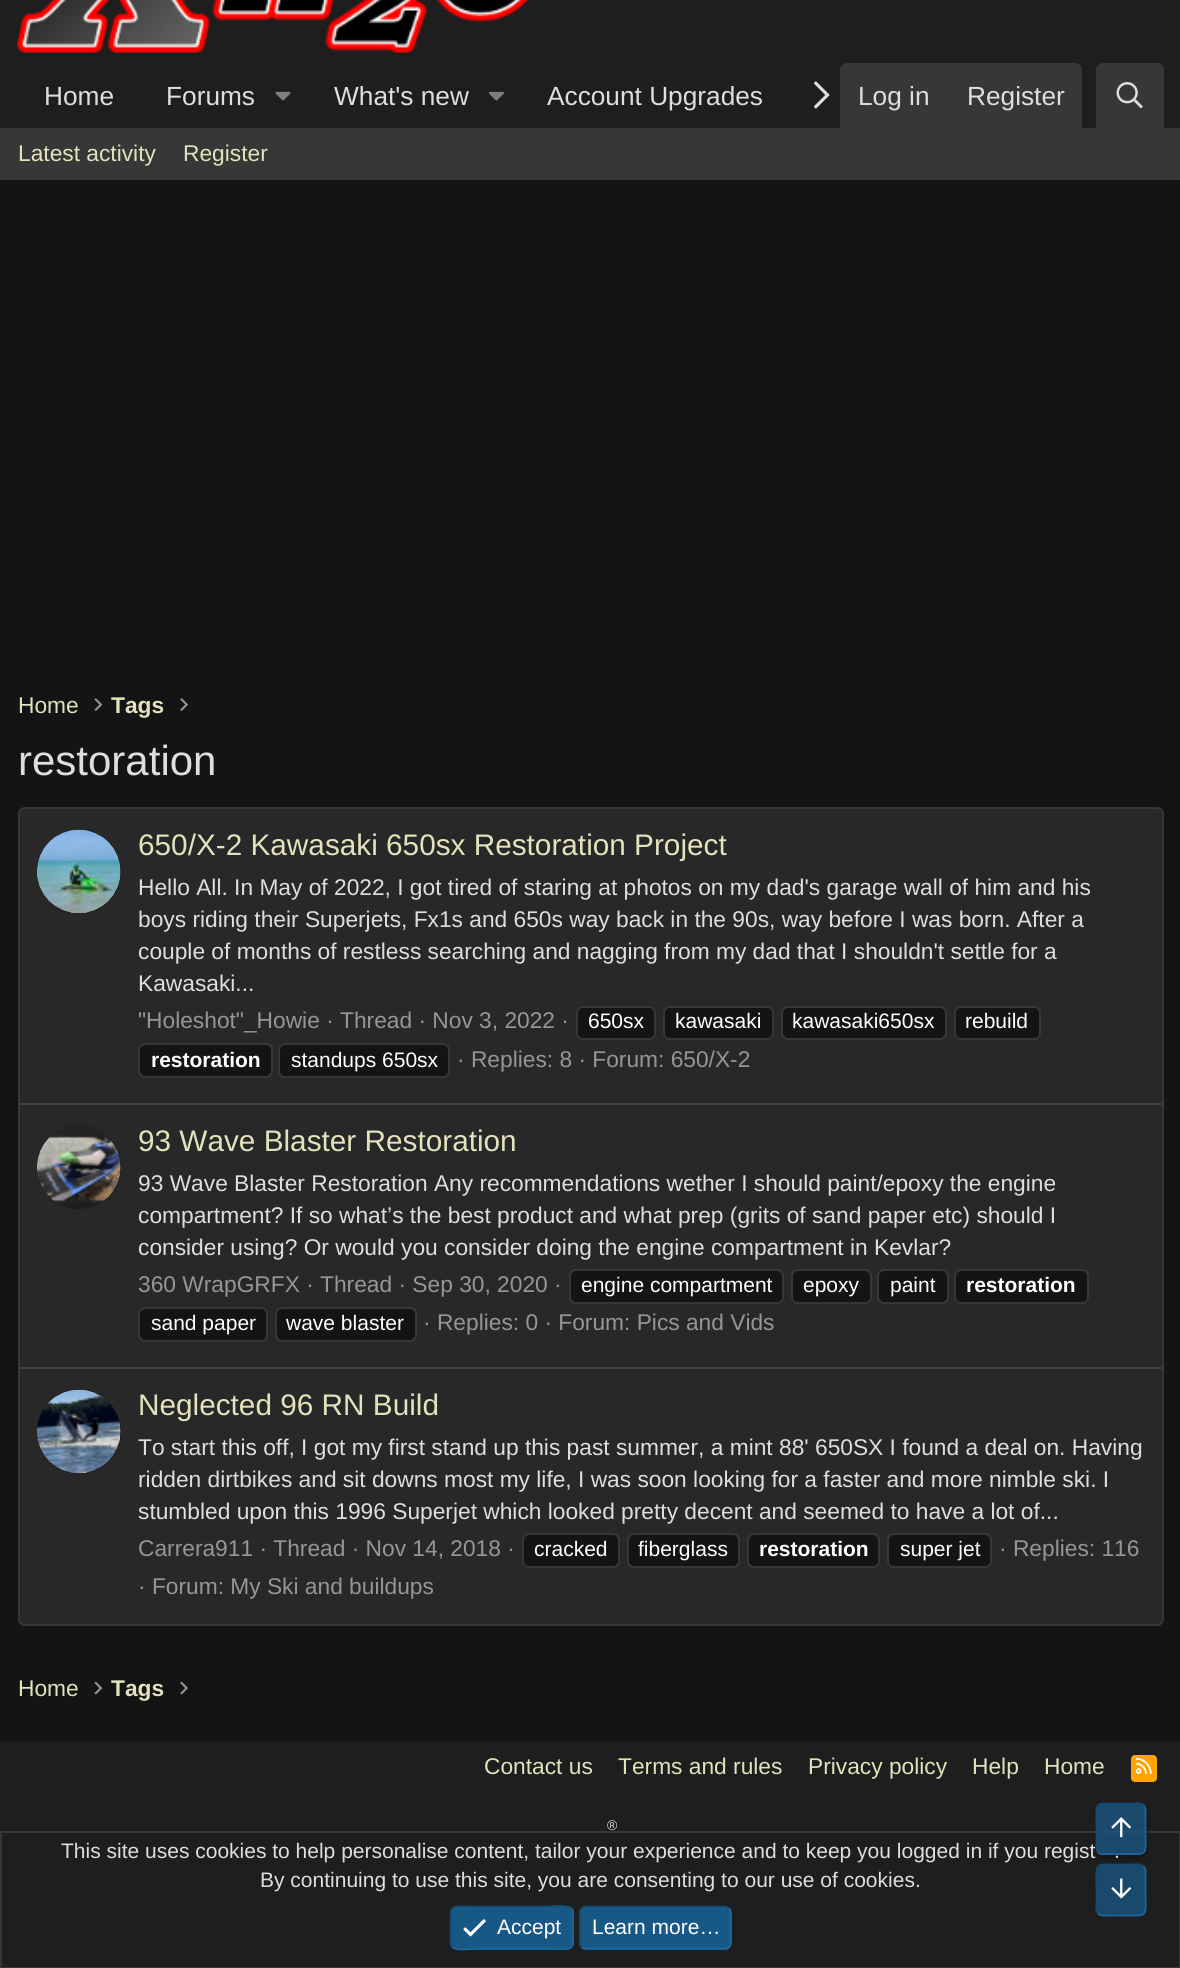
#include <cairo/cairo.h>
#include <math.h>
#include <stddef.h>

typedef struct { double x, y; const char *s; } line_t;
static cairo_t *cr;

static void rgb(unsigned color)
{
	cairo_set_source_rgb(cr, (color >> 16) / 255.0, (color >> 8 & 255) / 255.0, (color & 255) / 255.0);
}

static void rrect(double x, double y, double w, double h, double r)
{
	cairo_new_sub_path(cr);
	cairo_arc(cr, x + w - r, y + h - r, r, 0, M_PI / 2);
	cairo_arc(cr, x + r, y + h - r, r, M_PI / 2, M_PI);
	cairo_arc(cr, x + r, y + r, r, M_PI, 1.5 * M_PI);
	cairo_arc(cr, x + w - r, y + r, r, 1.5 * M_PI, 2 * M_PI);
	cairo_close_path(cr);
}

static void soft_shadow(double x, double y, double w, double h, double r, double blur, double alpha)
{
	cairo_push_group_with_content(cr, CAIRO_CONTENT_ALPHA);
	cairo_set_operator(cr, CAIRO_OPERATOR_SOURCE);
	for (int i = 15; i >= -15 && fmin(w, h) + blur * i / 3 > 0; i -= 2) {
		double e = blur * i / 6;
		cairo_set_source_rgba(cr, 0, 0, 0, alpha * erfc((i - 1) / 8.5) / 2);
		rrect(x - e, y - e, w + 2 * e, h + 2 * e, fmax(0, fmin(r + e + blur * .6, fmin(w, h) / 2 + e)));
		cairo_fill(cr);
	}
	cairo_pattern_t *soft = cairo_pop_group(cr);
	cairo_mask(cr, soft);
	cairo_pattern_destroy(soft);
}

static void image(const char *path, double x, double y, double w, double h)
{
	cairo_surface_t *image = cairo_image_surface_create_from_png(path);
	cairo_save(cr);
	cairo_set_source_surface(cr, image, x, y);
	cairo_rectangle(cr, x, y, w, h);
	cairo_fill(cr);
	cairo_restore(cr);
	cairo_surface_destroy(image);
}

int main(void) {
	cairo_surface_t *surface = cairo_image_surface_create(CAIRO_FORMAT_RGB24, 1180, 1968);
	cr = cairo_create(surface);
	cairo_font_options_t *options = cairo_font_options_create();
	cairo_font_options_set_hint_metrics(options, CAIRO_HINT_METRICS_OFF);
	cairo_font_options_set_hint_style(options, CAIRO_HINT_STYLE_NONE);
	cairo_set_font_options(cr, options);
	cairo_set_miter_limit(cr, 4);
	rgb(0x141414);
	cairo_paint(cr);
	rgb(0x1e1e1e);
	cairo_rectangle(cr, 0, 0, 1180, 128);
	cairo_fill(cr);
	image("img/1.png", 17, 0, 512, 53);
	image("img/2.png", 275, 91, 16, 10);
	image("img/3.png", 488, 91, 16, 10);
	image("img/4.png", 813, 81, 17, 28);
	rgb(0x373737);
	cairo_new_path(cr);
	cairo_move_to(cr, 847, 63);
	cairo_line_to(cr, 1075, 63);
	cairo_curve_to(cr, 1079, 63, 1082, 66, 1082, 70);
	cairo_line_to(cr, 1082, 128);
	cairo_line_to(cr, 840, 128);
	cairo_line_to(cr, 840, 70);
	cairo_curve_to(cr, 840, 66, 843, 63, 847, 63);
	cairo_close_path(cr);
	cairo_fill(cr);
	cairo_new_path(cr);
	cairo_move_to(cr, 1103, 63);
	cairo_line_to(cr, 1157, 63);
	cairo_curve_to(cr, 1161, 63, 1164, 66, 1164, 70);
	cairo_line_to(cr, 1164, 128);
	cairo_line_to(cr, 1096, 128);
	cairo_line_to(cr, 1096, 70);
	cairo_curve_to(cr, 1096, 66, 1099, 63, 1103, 63);
	cairo_close_path(cr);
	cairo_fill(cr);
	image("img/5.png", 1116, 82, 27, 27);
	cairo_rectangle(cr, 0, 128, 1180, 52);
	cairo_fill(cr);
	image("img/6.png", 94, 698, 9, 13);
	image("img/7.png", 180, 698, 8, 13);
	rgb(0x282828);
	rrect(19, 808, 1144, 817, 6);
	cairo_fill_preserve(cr);
	rgb(0x373737);
	cairo_stroke(cr);
	rgb(0x1e1e1e);
	cairo_arc(cr, 79, 872, 42, 0, 2 * M_PI);
	cairo_fill(cr);
	image("img/8.png", 37, 829, 84, 85);
	rgb(0x141414);
	rrect(577, 1007, 78, 32, 6);
	cairo_fill_preserve(cr);
	rgb(0x373737);
	cairo_stroke(cr);
	rgb(0x141414);
	rrect(664, 1007, 109, 32, 6);
	cairo_fill_preserve(cr);
	rgb(0x373737);
	cairo_stroke(cr);
	rgb(0x141414);
	rrect(782, 1007, 164, 32, 6);
	cairo_fill_preserve(cr);
	rgb(0x373737);
	cairo_stroke(cr);
	rgb(0x141414);
	rrect(955, 1007, 85, 32, 6);
	cairo_fill_preserve(cr);
	rgb(0x373737);
	cairo_stroke(cr);
	rgb(0x141414);
	rrect(139, 1044, 133, 33, 6);
	cairo_fill_preserve(cr);
	rgb(0x373737);
	cairo_stroke(cr);
	rgb(0x141414);
	rrect(279, 1044, 170, 33, 6);
	cairo_fill_preserve(cr);
	rgb(0x373737);
	cairo_stroke(cr);
	rgb(0x414141);
	cairo_rectangle(cr, 19, 1103, 1143, 2);
	cairo_fill(cr);
	rgb(0x1e1e1e);
	cairo_arc(cr, 79, 1167, 42, 0, 2 * M_PI);
	cairo_fill(cr);
	image("img/9.png", 37, 1126, 84, 77);
	rgb(0x141414);
	rrect(570, 1270, 213, 33, 6);
	cairo_fill_preserve(cr);
	rgb(0x373737);
	cairo_stroke(cr);
	rgb(0x141414);
	rrect(792, 1270, 79, 33, 6);
	cairo_fill_preserve(cr);
	rgb(0x373737);
	cairo_stroke(cr);
	rgb(0x141414);
	rrect(878, 1270, 70, 33, 6);
	cairo_fill_preserve(cr);
	rgb(0x373737);
	cairo_stroke(cr);
	rgb(0x141414);
	rrect(955, 1270, 133, 33, 6);
	cairo_fill_preserve(cr);
	rgb(0x373737);
	cairo_stroke(cr);
	rgb(0x141414);
	rrect(139, 1308, 128, 33, 6);
	cairo_fill_preserve(cr);
	rgb(0x373737);
	cairo_stroke(cr);
	rgb(0x141414);
	rrect(276, 1308, 140, 33, 6);
	cairo_fill_preserve(cr);
	rgb(0x373737);
	cairo_stroke(cr);
	rgb(0x414141);
	cairo_rectangle(cr, 19, 1367, 1143, 2);
	cairo_fill(cr);
	rgb(0x1e1e1e);
	cairo_arc(cr, 79, 1432, 42, 0, 2 * M_PI);
	cairo_fill(cr);
	image("img/10.png", 37, 1389, 84, 85);
	rgb(0x141414);
	rrect(523, 1534, 96, 33, 6);
	cairo_fill_preserve(cr);
	rgb(0x373737);
	cairo_stroke(cr);
	rgb(0x141414);
	rrect(628, 1534, 111, 33, 6);
	cairo_fill_preserve(cr);
	rgb(0x373737);
	cairo_stroke(cr);
	rgb(0x141414);
	rrect(748, 1534, 131, 33, 6);
	cairo_fill_preserve(cr);
	rgb(0x373737);
	cairo_stroke(cr);
	rgb(0x141414);
	rrect(888, 1534, 103, 33, 6);
	cairo_fill_preserve(cr);
	rgb(0x373737);
	cairo_stroke(cr);
	image("img/11.png", 94, 1681, 9, 14);
	image("img/12.png", 180, 1681, 8, 14);
	rgb(0x1e1e1e);
	cairo_rectangle(cr, 0, 1741, 1180, 90);
	cairo_fill(cr);
	rgb(0xffa500);
	rrect(1131, 1755, 26, 27, 4);
	cairo_fill(cr);
	image("img/13.png", 1135, 1758, 17, 16);
	rgb(0x1e1e1e);
	cairo_rectangle(cr, 1, 1832, 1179, 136);
	cairo_fill_preserve(cr);
	rgb(0x373737);
	cairo_stroke(cr);
	rgb(0x185886);
	rrect(450, 1906, 124, 44, 7);
	cairo_fill(cr);
	cairo_new_path(cr);
	cairo_move_to(cr, 571.5, 1908.5);
	cairo_curve_to(cr, 574, 1911, 573, 1914.5, 573, 1917.5);
	cairo_line_to(cr, 573, 1927.5);
	cairo_curve_to(cr, 573, 1952.5, 575, 1948.5, 548.5, 1948.5);
	cairo_line_to(cr, 475, 1948.5);
	cairo_curve_to(cr, 473.5, 1948.5, 457, 1951.5, 452.5, 1947);
	rgb(0x1c669c);
	cairo_set_line_width(cr, 1.8);
	cairo_stroke(cr);
	cairo_new_path(cr);
	cairo_move_to(cr, 452.5, 1947);
	cairo_curve_to(cr, 450, 1944.5, 450.5, 1940.5, 450.5, 1937.5);
	cairo_line_to(cr, 450.5, 1927.5);
	cairo_curve_to(cr, 450.5, 1903, 448.5, 1906.5, 475, 1906.5);
	cairo_line_to(cr, 548.5, 1906.5);
	cairo_curve_to(cr, 550.5, 1906.5, 567, 1904, 571.5, 1908.5);
	rgb(0x144a70);
	cairo_stroke(cr);
	image("img/14.png", 463, 1919, 23, 18);
	rgb(0x185886);
	rrect(579, 1906, 153, 44, 7);
	cairo_fill(cr);
	cairo_new_path(cr);
	cairo_move_to(cr, 729, 1908.5);
	cairo_curve_to(cr, 730, 1909.5, 730.5, 1911, 730.5, 1913);
	cairo_line_to(cr, 730.5, 1942.5);
	cairo_curve_to(cr, 730.5, 1944, 730, 1945.5, 729, 1947);
	cairo_curve_to(cr, 727.5, 1948, 726, 1948.5, 724.5, 1948.5);
	cairo_line_to(cr, 586, 1948.5);
	cairo_curve_to(cr, 584.5, 1948.5, 583, 1948, 582, 1947);
	rgb(0x1c669c);
	cairo_stroke(cr);
	cairo_new_path(cr);
	cairo_move_to(cr, 582, 1947);
	cairo_curve_to(cr, 581, 1945.5, 580, 1944, 580, 1942.5);
	cairo_line_to(cr, 580, 1913);
	cairo_curve_to(cr, 580, 1911, 581, 1909.5, 582, 1908.5);
	cairo_curve_to(cr, 583, 1907.5, 584.5, 1906.5, 586, 1906.5);
	cairo_line_to(cr, 724.5, 1906.5);
	cairo_curve_to(cr, 726, 1906.5, 727.5, 1907.5, 729, 1908.5);
	rgb(0x144a70);
	cairo_stroke(cr);
	cairo_save(cr);
	cairo_set_fill_rule(cr, CAIRO_FILL_RULE_EVEN_ODD);
	cairo_new_path(cr);
	cairo_move_to(cr, 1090, 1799);
	cairo_line_to(cr, 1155, 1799);
	cairo_line_to(cr, 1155, 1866);
	cairo_line_to(cr, 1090, 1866);
	cairo_close_path(cr);
	cairo_move_to(cr, 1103, 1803);
	cairo_line_to(cr, 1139, 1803);
	cairo_curve_to(cr, 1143, 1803, 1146, 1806, 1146, 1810);
	cairo_line_to(cr, 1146, 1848);
	cairo_curve_to(cr, 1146, 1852, 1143, 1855, 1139, 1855);
	cairo_line_to(cr, 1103, 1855);
	cairo_curve_to(cr, 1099, 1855, 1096, 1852, 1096, 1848);
	cairo_line_to(cr, 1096, 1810);
	cairo_curve_to(cr, 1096, 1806, 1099, 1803, 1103, 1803);
	cairo_close_path(cr);
	cairo_clip(cr);
	rgb(0x000000);
	soft_shadow(1097, 1806, 51, 53, 7, 2, 0.25);
	cairo_restore(cr);
	cairo_set_source_rgba(cr, 0.094, 0.345, 0.525, 0.75);
	rrect(1096, 1803, 50, 52, 7);
	cairo_fill(cr);
	rgb(0x19496c);
	rrect(1096, 1864, 50, 52, 7);
	cairo_fill(cr);
	cairo_new_path(cr);
	cairo_move_to(cr, 1143.5, 1866.5);
	cairo_curve_to(cr, 1146.5, 1869, 1145.5, 1874, 1145.5, 1877);
	cairo_line_to(cr, 1145.5, 1890);
	cairo_curve_to(cr, 1145.5, 1918.5, 1149.5, 1915.5, 1121, 1915.5);
	cairo_line_to(cr, 1108.5, 1915.5);
	cairo_curve_to(cr, 1105.5, 1915.5, 1101, 1916.5, 1098, 1913.5);
	rgb(0x1c669c);
	cairo_stroke(cr);
	cairo_new_path(cr);
	cairo_move_to(cr, 1098, 1913.5);
	cairo_curve_to(cr, 1095.5, 1911, 1096.5, 1906, 1096.5, 1903);
	cairo_line_to(cr, 1096.5, 1890);
	cairo_curve_to(cr, 1096.5, 1861.5, 1092.5, 1864.5, 1121, 1864.5);
	cairo_line_to(cr, 1133, 1864.5);
	cairo_curve_to(cr, 1136.5, 1864.5, 1141, 1863.5, 1143.5, 1866.5);
	rgb(0x144a70);
	cairo_stroke(cr);
	image("img/16.png", 1111, 1878, 21, 21);
	cairo_select_font_face(cr, "Liberation Sans", CAIRO_FONT_SLANT_NORMAL, CAIRO_FONT_WEIGHT_NORMAL);
	cairo_set_font_size(cr, 26.25);
	rgb(0xdedede);
	{
		static const line_t items[] = {
			{44, 105, "Home"},
			{166, 105, "Forums"},
			{334, 105, "What's new"},
			{547, 105, "Account Upgrades"},
			{858, 105, "Log in"},
			{967, 105, "Register"},
		};
		for (size_t i = 0; i < sizeof items / sizeof *items; i++) {
			cairo_move_to(cr, items[i].x, items[i].y);
			cairo_show_text(cr, items[i].s);
		}
	}
	cairo_set_font_size(cr, 22.75);
	rgb(0xe2e2bc);
	{
		static const line_t items[] = {
			{18, 161, "Latest activity"},
			{183, 161, "Register"},
			{18, 713, "Home"},
		};
		for (size_t i = 0; i < sizeof items / sizeof *items; i++) {
			cairo_move_to(cr, items[i].x, items[i].y);
			cairo_show_text(cr, items[i].s);
		}
	}
	cairo_select_font_face(cr, "Liberation Sans", CAIRO_FONT_SLANT_NORMAL, CAIRO_FONT_WEIGHT_BOLD);
	cairo_move_to(cr, 111, 713);
	cairo_show_text(cr, "Tags");
	cairo_select_font_face(cr, "Liberation Sans", CAIRO_FONT_SLANT_NORMAL, CAIRO_FONT_WEIGHT_NORMAL);
	cairo_set_font_size(cr, 42);
	rgb(0xdedede);
	cairo_move_to(cr, 18, 775);
	cairo_show_text(cr, "restoration");
	cairo_set_font_size(cr, 29.75);
	rgb(0xe2e2bc);
	cairo_move_to(cr, 138, 855);
	cairo_show_text(cr, "650/X-2 Kawasaki 650sx Restoration Project");
	cairo_set_font_size(cr, 22.75);
	rgb(0xdedede);
	{
		static const line_t items[] = {
			{138, 895, "Hello All. In May of 2022, I got tired of staring at photos on my dad's garage wall of him and his"},
			{138, 927, "boys riding their Superjets, Fx1s and 650s way back in the 90s, way before I was born. After a"},
			{138, 959, "couple of months of restless searching and nagging from my dad that I shouldn't settle for a"},
			{138, 991, "Kawasaki..."},
		};
		for (size_t i = 0; i < sizeof items / sizeof *items; i++) {
			cairo_move_to(cr, items[i].x, items[i].y);
			cairo_show_text(cr, items[i].s);
		}
	}
	rgb(0x969696);
	cairo_move_to(cr, 138, 1028);
	cairo_show_text(cr, "\"Holeshot\"_Howie · Thread · Nov 3, 2022 ·");
	cairo_set_font_size(cr, 21);
	rgb(0xffffff);
	{
		static const line_t items[] = {
			{588, 1028, "650sx"},
			{675, 1028, "kawasaki"},
			{792, 1028, "kawasaki650sx"},
			{965, 1028, "rebuild"},
		};
		for (size_t i = 0; i < sizeof items / sizeof *items; i++) {
			cairo_move_to(cr, items[i].x, items[i].y);
			cairo_show_text(cr, items[i].s);
		}
	}
	cairo_select_font_face(cr, "Liberation Sans", CAIRO_FONT_SLANT_NORMAL, CAIRO_FONT_WEIGHT_BOLD);
	cairo_move_to(cr, 151, 1067);
	cairo_show_text(cr, "restoration");
	cairo_select_font_face(cr, "Liberation Sans", CAIRO_FONT_SLANT_NORMAL, CAIRO_FONT_WEIGHT_NORMAL);
	cairo_move_to(cr, 291, 1067);
	cairo_show_text(cr, "standups 650sx");
	cairo_set_font_size(cr, 22.75);
	rgb(0x969696);
	cairo_move_to(cr, 457, 1067);
	cairo_show_text(cr, "· Replies: 8 · Forum: 650/X-2");
	cairo_set_font_size(cr, 29.75);
	rgb(0xe2e2bc);
	cairo_move_to(cr, 138, 1151);
	cairo_show_text(cr, "93 Wave Blaster Restoration");
	cairo_set_font_size(cr, 22.75);
	rgb(0xdedede);
	{
		static const line_t items[] = {
			{138, 1191, "93 Wave Blaster Restoration Any recommendations wether I should paint/epoxy the engine"},
			{138, 1223, "compartment? If so what’s the best product and what prep (grits of sand paper etc) should I"},
			{138, 1255, "consider using? Or would you consider doing the engine compartment in Kevlar?"},
		};
		for (size_t i = 0; i < sizeof items / sizeof *items; i++) {
			cairo_move_to(cr, items[i].x, items[i].y);
			cairo_show_text(cr, items[i].s);
		}
	}
	rgb(0x969696);
	cairo_move_to(cr, 138, 1292);
	cairo_show_text(cr, "360 WrapGRFX · Thread · Sep 30, 2020 ·");
	cairo_set_font_size(cr, 21);
	rgb(0xffffff);
	{
		static const line_t items[] = {
			{581, 1292, "engine compartment"},
			{803, 1292, "epoxy"},
			{890, 1292, "paint"},
		};
		for (size_t i = 0; i < sizeof items / sizeof *items; i++) {
			cairo_move_to(cr, items[i].x, items[i].y);
			cairo_show_text(cr, items[i].s);
		}
	}
	cairo_select_font_face(cr, "Liberation Sans", CAIRO_FONT_SLANT_NORMAL, CAIRO_FONT_WEIGHT_BOLD);
	cairo_move_to(cr, 966, 1292);
	cairo_show_text(cr, "restoration");
	cairo_select_font_face(cr, "Liberation Sans", CAIRO_FONT_SLANT_NORMAL, CAIRO_FONT_WEIGHT_NORMAL);
	cairo_move_to(cr, 151, 1330);
	cairo_show_text(cr, "sand paper");
	cairo_move_to(cr, 286, 1330);
	cairo_show_text(cr, "wave blaster");
	cairo_set_font_size(cr, 22.75);
	rgb(0x969696);
	cairo_move_to(cr, 423, 1330);
	cairo_show_text(cr, "· Replies: 0 · Forum: Pics and Vids");
	cairo_set_font_size(cr, 29.75);
	rgb(0xe2e2bc);
	cairo_move_to(cr, 138, 1415);
	cairo_show_text(cr, "Neglected 96 RN Build");
	cairo_set_font_size(cr, 22.75);
	rgb(0xdedede);
	{
		static const line_t items[] = {
			{138, 1455, "To start this off, I got my first stand up this past summer, a mint 88' 650SX I found a deal on. Having"},
			{138, 1487, "ridden dirtbikes and sit downs most my life, I was soon looking for a faster and more nimble ski. I"},
			{138, 1519, "stumbled upon this 1996 Superjet which looked pretty decent and seemed to have a lot of..."},
		};
		for (size_t i = 0; i < sizeof items / sizeof *items; i++) {
			cairo_move_to(cr, items[i].x, items[i].y);
			cairo_show_text(cr, items[i].s);
		}
	}
	rgb(0x969696);
	cairo_move_to(cr, 138, 1556);
	cairo_show_text(cr, "Carrera911 · Thread · Nov 14, 2018 ·");
	cairo_set_font_size(cr, 21);
	rgb(0xffffff);
	cairo_move_to(cr, 534, 1556);
	cairo_show_text(cr, "cracked");
	cairo_move_to(cr, 638, 1556);
	cairo_show_text(cr, "fiberglass");
	cairo_select_font_face(cr, "Liberation Sans", CAIRO_FONT_SLANT_NORMAL, CAIRO_FONT_WEIGHT_BOLD);
	cairo_move_to(cr, 759, 1556);
	cairo_show_text(cr, "restoration");
	cairo_select_font_face(cr, "Liberation Sans", CAIRO_FONT_SLANT_NORMAL, CAIRO_FONT_WEIGHT_NORMAL);
	cairo_move_to(cr, 900, 1556);
	cairo_show_text(cr, "super jet");
	cairo_set_font_size(cr, 22.75);
	rgb(0x969696);
	cairo_move_to(cr, 999, 1556);
	cairo_show_text(cr, "· Replies: 116");
	cairo_move_to(cr, 138, 1594);
	cairo_show_text(cr, "· Forum: My Ski and buildups");
	rgb(0xe2e2bc);
	cairo_move_to(cr, 18, 1696);
	cairo_show_text(cr, "Home");
	cairo_select_font_face(cr, "Liberation Sans", CAIRO_FONT_SLANT_NORMAL, CAIRO_FONT_WEIGHT_BOLD);
	cairo_move_to(cr, 111, 1696);
	cairo_show_text(cr, "Tags");
	cairo_select_font_face(cr, "Liberation Sans", CAIRO_FONT_SLANT_NORMAL, CAIRO_FONT_WEIGHT_NORMAL);
	{
		static const line_t items[] = {
			{484, 1774, "Contact us"},
			{618, 1774, "Terms and rules"},
			{808, 1774, "Privacy policy"},
			{972, 1774, "Help"},
			{1044, 1774, "Home"},
		};
		for (size_t i = 0; i < sizeof items / sizeof *items; i++) {
			cairo_move_to(cr, items[i].x, items[i].y);
			cairo_show_text(cr, items[i].s);
		}
	}
	cairo_set_font_size(cr, 14);
	rgb(0xdedede);
	cairo_move_to(cr, 607, 1830);
	cairo_show_text(cr, "®");
	cairo_set_font_size(cr, 21);
	{
		static const line_t items[] = {
			{61, 1858, "This site uses cookies to help personalise content, tailor your experience and to keep you logged in if you regist"},
			{1114, 1858, "."},
			{260, 1887, "By continuing to use this site, you are consenting to our use of cookies."},
		};
		for (size_t i = 0; i < sizeof items / sizeof *items; i++) {
			cairo_move_to(cr, items[i].x, items[i].y);
			cairo_show_text(cr, items[i].s);
		}
	}
	rgb(0xffffff);
	cairo_move_to(cr, 497, 1934);
	cairo_show_text(cr, "Accept");
	cairo_move_to(cr, 592, 1934);
	cairo_show_text(cr, "Learn more…");
	cairo_new_path(cr);
	cairo_move_to(cr, 1143.5, 1805);
	cairo_curve_to(cr, 1146.5, 1808, 1145.5, 1812.5, 1145.5, 1816);
	cairo_line_to(cr, 1145.5, 1829);
	cairo_curve_to(cr, 1145.5, 1857.5, 1149.5, 1854, 1121, 1854);
	cairo_line_to(cr, 1108.5, 1854);
	cairo_curve_to(cr, 1105.5, 1854, 1101, 1855, 1098, 1852.5);
	rgb(0x1c669c);
	cairo_stroke(cr);
	cairo_new_path(cr);
	cairo_move_to(cr, 1098, 1852.5);
	cairo_curve_to(cr, 1095.5, 1849.5, 1096.5, 1845, 1096.5, 1841.5);
	cairo_line_to(cr, 1096.5, 1829);
	cairo_curve_to(cr, 1096.5, 1800, 1092.5, 1803.5, 1121, 1803.5);
	cairo_line_to(cr, 1133, 1803.5);
	cairo_curve_to(cr, 1136.5, 1803.5, 1141, 1802.5, 1143.5, 1805);
	rgb(0x144a70);
	cairo_stroke(cr);
	image("img/15.png", 1111, 1817, 21, 21);
	cairo_surface_write_to_png(surface, "page.png");
	cairo_font_options_destroy(options);
	cairo_destroy(cr);
	cairo_surface_destroy(surface);
	return 0;
}
